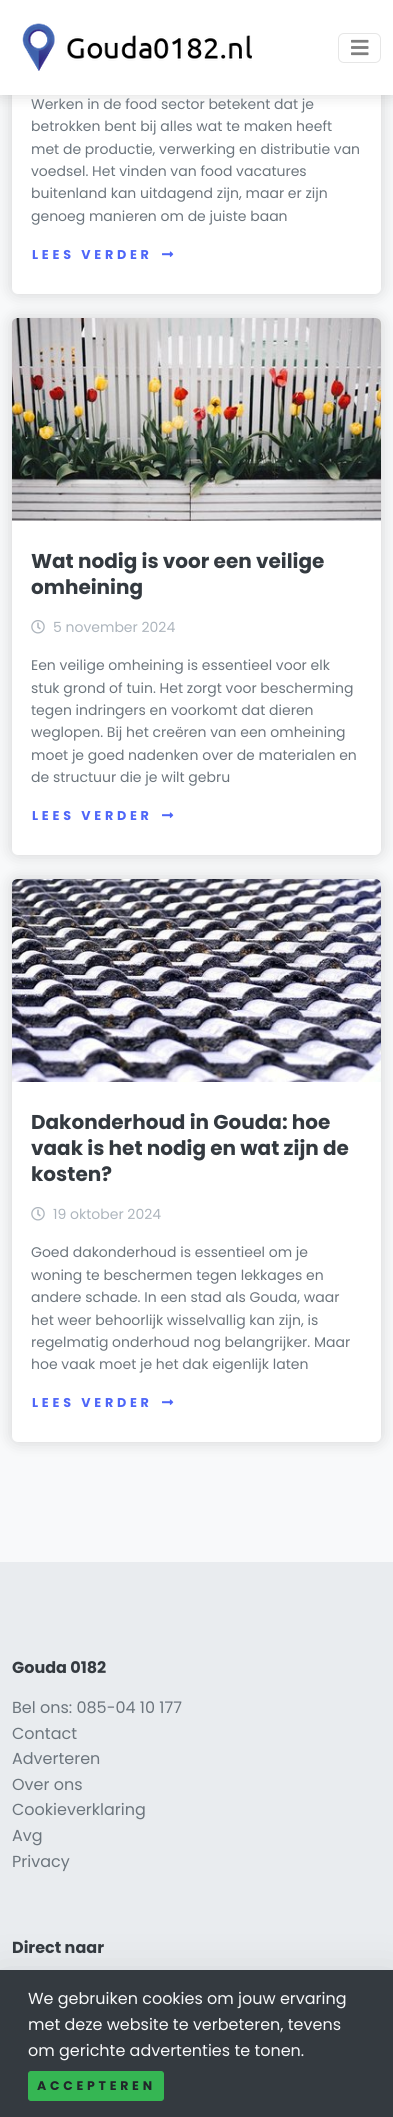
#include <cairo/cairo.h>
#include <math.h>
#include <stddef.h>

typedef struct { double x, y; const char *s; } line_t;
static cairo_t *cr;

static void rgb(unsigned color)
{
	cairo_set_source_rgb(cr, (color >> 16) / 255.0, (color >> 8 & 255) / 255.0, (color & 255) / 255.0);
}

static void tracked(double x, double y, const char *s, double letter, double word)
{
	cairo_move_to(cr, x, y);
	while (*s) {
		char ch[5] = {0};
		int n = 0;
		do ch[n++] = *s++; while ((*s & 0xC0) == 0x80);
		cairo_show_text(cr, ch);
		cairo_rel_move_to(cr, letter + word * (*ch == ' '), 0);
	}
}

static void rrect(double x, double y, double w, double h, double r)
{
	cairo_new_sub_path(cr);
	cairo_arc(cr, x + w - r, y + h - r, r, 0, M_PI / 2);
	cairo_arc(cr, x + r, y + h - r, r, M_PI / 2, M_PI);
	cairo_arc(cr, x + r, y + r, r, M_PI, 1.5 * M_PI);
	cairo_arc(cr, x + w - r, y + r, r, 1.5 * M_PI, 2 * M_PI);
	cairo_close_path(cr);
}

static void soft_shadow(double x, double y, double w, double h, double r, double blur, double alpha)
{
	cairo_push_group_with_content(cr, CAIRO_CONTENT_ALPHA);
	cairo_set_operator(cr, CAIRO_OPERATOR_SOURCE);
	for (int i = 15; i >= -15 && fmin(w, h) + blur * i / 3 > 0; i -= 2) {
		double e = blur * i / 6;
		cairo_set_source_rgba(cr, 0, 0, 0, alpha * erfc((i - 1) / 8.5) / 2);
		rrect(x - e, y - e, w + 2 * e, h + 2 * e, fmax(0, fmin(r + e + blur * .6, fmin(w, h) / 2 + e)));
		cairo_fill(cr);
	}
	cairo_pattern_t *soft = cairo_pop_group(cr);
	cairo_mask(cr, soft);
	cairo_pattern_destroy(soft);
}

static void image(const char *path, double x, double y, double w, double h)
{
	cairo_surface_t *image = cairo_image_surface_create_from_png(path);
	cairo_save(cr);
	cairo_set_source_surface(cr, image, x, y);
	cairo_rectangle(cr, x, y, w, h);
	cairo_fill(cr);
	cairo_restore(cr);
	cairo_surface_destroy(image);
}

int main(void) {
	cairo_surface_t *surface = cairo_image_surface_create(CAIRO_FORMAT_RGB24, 393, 2117);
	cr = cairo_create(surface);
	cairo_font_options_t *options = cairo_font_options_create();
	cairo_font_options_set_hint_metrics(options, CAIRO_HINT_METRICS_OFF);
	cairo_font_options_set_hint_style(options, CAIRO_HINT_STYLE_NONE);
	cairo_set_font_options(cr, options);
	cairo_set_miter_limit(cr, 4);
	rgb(0xf8f9fa);
	cairo_paint(cr);
	rgb(0x000000);
	soft_shadow(12, -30, 369, 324, 6, 8, 0.15);
	rgb(0xffffff);
	rrect(12, -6, 369, 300, 6);
	cairo_fill(cr);
	rgb(0x000000);
	soft_shadow(0, 0, 393, 95, 0, 8, 0.15);
	rgb(0xffffff);
	cairo_rectangle(cr, 0, 0, 393, 95);
	cairo_fill(cr);
	image("img/1.png", 22, 23, 230, 48);
	rrect(338.5, 33.5, 42, 29, 5.5);
	rgb(0xe6e6e6);
	cairo_set_line_width(cr, 1);
	cairo_stroke(cr);
	image("img/2.png", 351, 39, 18, 17);
	image("img/3.png", 162, 251, 12, 6);
	rgb(0x000000);
	soft_shadow(12, 318, 369, 537, 6, 8, 0.15);
	rgb(0xffffff);
	rrect(12, 318, 369, 537, 6);
	cairo_fill(cr);
	image("img/4.png", 12, 318, 369, 203);
	image("img/5.png", 31, 620, 14, 14);
	image("img/3.png", 162, 812, 12, 6);
	rgb(0x000000);
	soft_shadow(12, 879, 369, 563, 6, 8, 0.15);
	rgb(0xffffff);
	rrect(12, 879, 369, 563, 6);
	cairo_fill(cr);
	image("img/6.png", 12, 879, 369, 203);
	image("img/5.png", 31, 1207, 14, 14);
	image("img/3.png", 162, 1399, 12, 6);
	rgb(0xe9ecef);
	cairo_rectangle(cr, 0, 1562, 393, 408);
	cairo_fill(cr);
	rgb(0x000000);
	soft_shadow(0, 1986, 393, 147, 0, 24, 0.18);
	rgb(0x343a40);
	cairo_rectangle(cr, 0, 1970, 393, 147);
	cairo_fill(cr);
	rgb(0x35b653);
	rrect(28.5, 2071.5, 135, 29, 2.5);
	cairo_fill_preserve(cr);
	cairo_stroke(cr);
	cairo_select_font_face(cr, "Poppins", CAIRO_FONT_SLANT_NORMAL, CAIRO_FONT_WEIGHT_NORMAL);
	cairo_set_font_size(cr, 14);
	rgb(0x6c757d);
	{
		static const line_t items[] = {
			{31, 109, "Werken in de food sector betekent dat je"},
			{31, 131, "betrokken bent bij alles wat te maken heeft"},
			{31, 154, "met de productie, verwerking en distributie van"},
			{31, 176, "voedsel. Het vinden van food vacatures"},
			{31, 198, "buitenland kan uitdagend zijn, maar er zijn"},
			{31, 221, "genoeg manieren om de juiste baan"},
		};
		for (size_t i = 0; i < sizeof items / sizeof *items; i++) {
			cairo_move_to(cr, items[i].x, items[i].y);
			cairo_show_text(cr, items[i].s);
		}
	}
	cairo_select_font_face(cr, "Poppins", CAIRO_FONT_SLANT_NORMAL, CAIRO_FONT_WEIGHT_BOLD);
	cairo_set_font_size(cr, 12.75);
	rgb(0x4e66f8);
	tracked(32, 259, "LEES VERDER", 3.75, 0);
	cairo_set_font_size(cr, 20);
	rgb(0x343a40);
	cairo_move_to(cr, 31, 568);
	cairo_show_text(cr, "Wat nodig is voor een veilige");
	cairo_move_to(cr, 31, 594);
	cairo_show_text(cr, "omheining");
	cairo_select_font_face(cr, "Poppins", CAIRO_FONT_SLANT_NORMAL, CAIRO_FONT_WEIGHT_NORMAL);
	cairo_set_font_size(cr, 14);
	rgb(0xadb5bd);
	cairo_move_to(cr, 53, 632);
	cairo_show_text(cr, "5 november 2024");
	rgb(0x6c757d);
	{
		static const line_t items[] = {
			{31, 670, "Een veilige omheining is essentieel voor elk"},
			{31, 693, "stuk grond of tuin. Het zorgt voor bescherming"},
			{31, 715, "tegen indringers en voorkomt dat dieren"},
			{31, 737, "weglopen. Bij het creëren van een omheining"},
			{31, 760, "moet je goed nadenken over de materialen en"},
			{31, 782, "de structuur die je wilt gebru"},
		};
		for (size_t i = 0; i < sizeof items / sizeof *items; i++) {
			cairo_move_to(cr, items[i].x, items[i].y);
			cairo_show_text(cr, items[i].s);
		}
	}
	cairo_select_font_face(cr, "Poppins", CAIRO_FONT_SLANT_NORMAL, CAIRO_FONT_WEIGHT_BOLD);
	cairo_set_font_size(cr, 12.75);
	rgb(0x4e66f8);
	tracked(32, 820, "LEES VERDER", 3.75, 0);
	cairo_set_font_size(cr, 20);
	rgb(0x343a40);
	{
		static const line_t items[] = {
			{31, 1129, "Dakonderhoud in Gouda: hoe"},
			{31, 1155, "vaak is het nodig en wat zijn de"},
			{31, 1181, "kosten?"},
		};
		for (size_t i = 0; i < sizeof items / sizeof *items; i++) {
			cairo_move_to(cr, items[i].x, items[i].y);
			cairo_show_text(cr, items[i].s);
		}
	}
	cairo_select_font_face(cr, "Poppins", CAIRO_FONT_SLANT_NORMAL, CAIRO_FONT_WEIGHT_NORMAL);
	cairo_set_font_size(cr, 14);
	rgb(0xadb5bd);
	cairo_move_to(cr, 53, 1219);
	cairo_show_text(cr, "19 oktober 2024");
	rgb(0x6c757d);
	{
		static const line_t items[] = {
			{31, 1257, "Goed dakonderhoud is essentieel om je"},
			{31, 1280, "woning te beschermen tegen lekkages en"},
			{31, 1302, "andere schade. In een stad als Gouda, waar"},
			{31, 1325, "het weer behoorlijk wisselvallig kan zijn, is"},
			{31, 1347, "regelmatig onderhoud nog belangrijker. Maar"},
			{31, 1369, "hoe vaak moet je het dak eigenlijk laten"},
		};
		for (size_t i = 0; i < sizeof items / sizeof *items; i++) {
			cairo_move_to(cr, items[i].x, items[i].y);
			cairo_show_text(cr, items[i].s);
		}
	}
	cairo_select_font_face(cr, "Poppins", CAIRO_FONT_SLANT_NORMAL, CAIRO_FONT_WEIGHT_BOLD);
	cairo_set_font_size(cr, 12.75);
	rgb(0x4e66f8);
	tracked(32, 1407, "LEES VERDER", 3.75, 0);
	cairo_set_font_size(cr, 16);
	rgb(0x343a40);
	cairo_move_to(cr, 12, 1673);
	cairo_show_text(cr, "Gouda 0182");
	cairo_select_font_face(cr, "Poppins", CAIRO_FONT_SLANT_NORMAL, CAIRO_FONT_WEIGHT_NORMAL);
	rgb(0x6c757d);
	{
		static const line_t items[] = {
			{12, 1713, "Bel ons: 085-04 10 177"},
			{12, 1739, "Contact"},
			{12, 1764, "Adverteren"},
			{12, 1790, "Over ons"},
			{12, 1815, "Cookieverklaring"},
			{12, 1841, "Avg"},
			{12, 1867, "Privacy"},
		};
		for (size_t i = 0; i < sizeof items / sizeof *items; i++) {
			cairo_move_to(cr, items[i].x, items[i].y);
			cairo_show_text(cr, items[i].s);
		}
	}
	cairo_select_font_face(cr, "Poppins", CAIRO_FONT_SLANT_NORMAL, CAIRO_FONT_WEIGHT_BOLD);
	rgb(0x343a40);
	cairo_move_to(cr, 12, 1953);
	cairo_show_text(cr, "Direct naar");
	cairo_select_font_face(cr, "Poppins", CAIRO_FONT_SLANT_NORMAL, CAIRO_FONT_WEIGHT_NORMAL);
	rgb(0xf8f9fa);
	{
		static const line_t items[] = {
			{28, 2004, "We gebruiken cookies om jouw ervaring"},
			{28, 2030, "met deze website te verbeteren, tevens"},
			{28, 2056, "om gerichte advertenties te tonen."},
		};
		for (size_t i = 0; i < sizeof items / sizeof *items; i++) {
			cairo_move_to(cr, items[i].x, items[i].y);
			cairo_show_text(cr, items[i].s);
		}
	}
	cairo_select_font_face(cr, "Poppins", CAIRO_FONT_SLANT_NORMAL, CAIRO_FONT_WEIGHT_BOLD);
	cairo_set_font_size(cr, 12.5);
	rgb(0x212529);
	tracked(37, 2090, "ACCEPTEREN", 3.75, 0);
	cairo_surface_write_to_png(surface, "page.png");
	cairo_font_options_destroy(options);
	cairo_destroy(cr);
	cairo_surface_destroy(surface);
	return 0;
}
